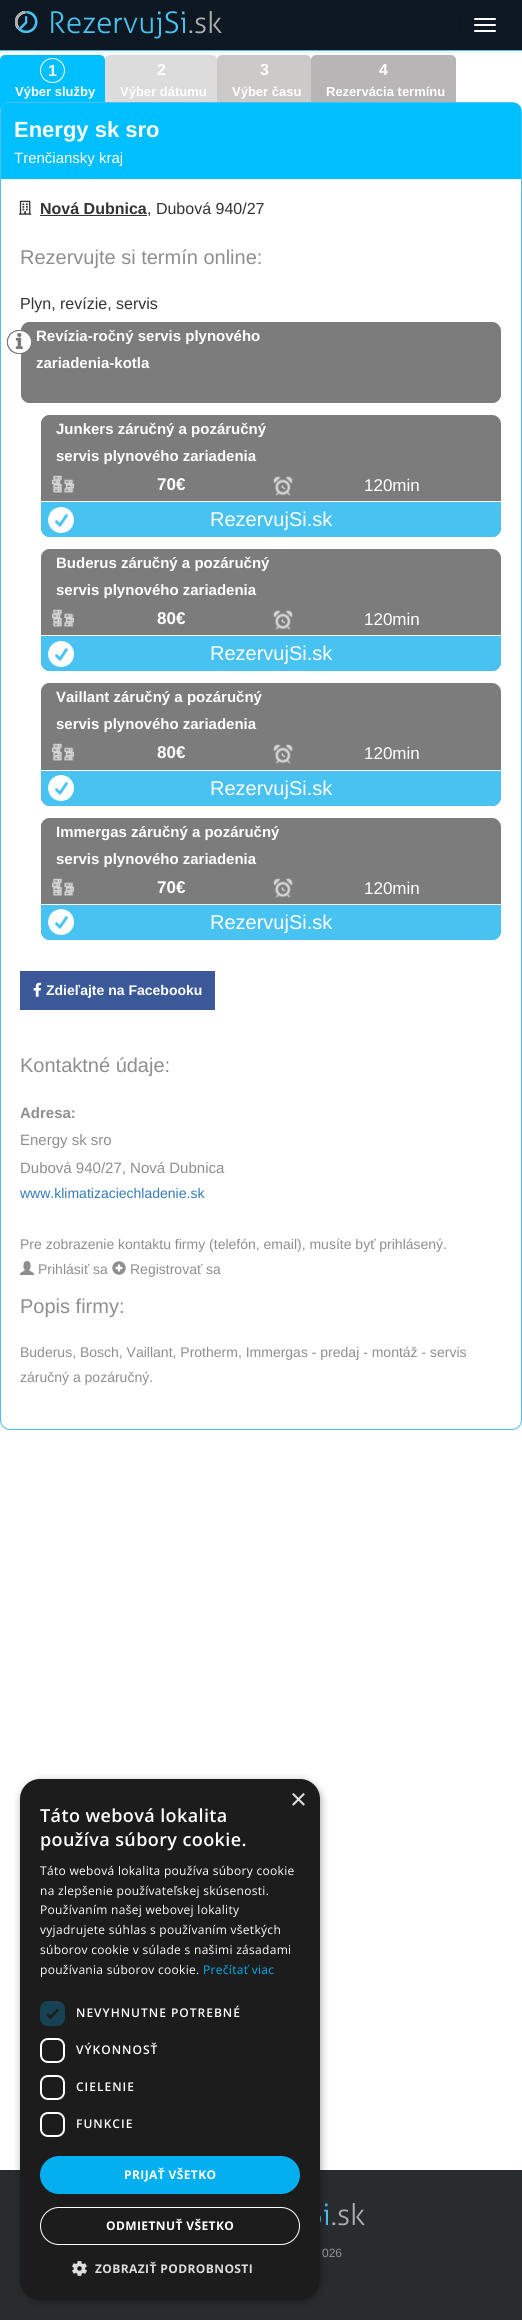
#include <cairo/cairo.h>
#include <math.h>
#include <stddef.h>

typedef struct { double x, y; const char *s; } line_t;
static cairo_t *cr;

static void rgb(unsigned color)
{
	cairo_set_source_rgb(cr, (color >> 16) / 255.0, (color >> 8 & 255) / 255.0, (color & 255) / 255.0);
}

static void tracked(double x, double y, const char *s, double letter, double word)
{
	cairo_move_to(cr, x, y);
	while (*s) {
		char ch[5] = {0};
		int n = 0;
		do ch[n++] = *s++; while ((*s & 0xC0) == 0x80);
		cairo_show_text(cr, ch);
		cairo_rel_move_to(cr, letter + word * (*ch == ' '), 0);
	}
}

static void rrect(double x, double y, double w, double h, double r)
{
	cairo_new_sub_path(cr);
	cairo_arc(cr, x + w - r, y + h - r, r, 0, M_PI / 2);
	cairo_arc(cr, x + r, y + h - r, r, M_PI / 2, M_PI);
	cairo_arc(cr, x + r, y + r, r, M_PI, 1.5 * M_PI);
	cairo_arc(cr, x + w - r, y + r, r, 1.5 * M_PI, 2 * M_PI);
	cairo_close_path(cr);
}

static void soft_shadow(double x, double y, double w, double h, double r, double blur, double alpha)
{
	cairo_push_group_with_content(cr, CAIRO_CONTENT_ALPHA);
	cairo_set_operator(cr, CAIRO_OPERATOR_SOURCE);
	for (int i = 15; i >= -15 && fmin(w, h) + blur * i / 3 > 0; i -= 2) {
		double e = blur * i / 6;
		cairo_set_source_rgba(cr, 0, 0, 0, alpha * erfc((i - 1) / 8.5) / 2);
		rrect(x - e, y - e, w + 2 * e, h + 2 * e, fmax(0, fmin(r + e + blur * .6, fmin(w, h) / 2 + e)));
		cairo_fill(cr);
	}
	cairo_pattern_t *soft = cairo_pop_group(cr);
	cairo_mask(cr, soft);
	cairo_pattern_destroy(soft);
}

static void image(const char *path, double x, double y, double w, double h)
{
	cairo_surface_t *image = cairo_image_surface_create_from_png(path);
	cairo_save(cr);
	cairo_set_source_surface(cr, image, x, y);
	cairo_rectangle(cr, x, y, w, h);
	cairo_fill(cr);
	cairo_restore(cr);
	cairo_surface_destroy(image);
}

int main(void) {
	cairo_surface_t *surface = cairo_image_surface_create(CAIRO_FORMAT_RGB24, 522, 2320);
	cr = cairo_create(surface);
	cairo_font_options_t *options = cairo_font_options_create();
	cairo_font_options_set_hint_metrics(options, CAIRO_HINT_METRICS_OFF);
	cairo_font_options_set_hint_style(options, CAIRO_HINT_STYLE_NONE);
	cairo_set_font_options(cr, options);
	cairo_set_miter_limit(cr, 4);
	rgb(0xffffff);
	cairo_paint(cr);
	rgb(0x0e1823);
	cairo_rectangle(cr, 0, 0, 522, 50);
	cairo_fill(cr);
	rgb(0x49c1f3);
	cairo_rectangle(cr, 0, 50, 522, 1);
	cairo_fill(cr);
	image("img/1.png", 15, 11, 207, 28);
	rrect(463.5, 8.5, 43, 33, 9.5);
	rgb(0x0e1b20);
	cairo_set_line_width(cr, 1);
	cairo_stroke(cr);
	rgb(0xffffff);
	rrect(474, 18, 22, 2, 1);
	cairo_fill(cr);
	rrect(474, 24, 22, 2, 1);
	cairo_fill(cr);
	rrect(474, 30, 22, 2, 1);
	cairo_fill(cr);
	rgb(0xf2f2f2);
	cairo_rectangle(cr, 0, 52, 522, 1);
	cairo_fill(cr);
	rgb(0x00bfff);
	rrect(0, 55, 105, 58, 5);
	cairo_fill(cr);
	cairo_arc(cr, 52.5, 70.5, 12, 0, 2 * M_PI);
	rgb(0xffffff);
	cairo_stroke(cr);
	rgb(0xdcdcdc);
	rrect(105, 55, 112, 58, 5);
	cairo_fill(cr);
	rgb(0xccc9c9);
	rrect(217, 55, 94, 58, 5);
	cairo_fill(cr);
	rgb(0xb7b5b5);
	rrect(311, 55, 145, 58, 5);
	cairo_fill(cr);
	rgb(0xffffff);
	rrect(0.5, 102.5, 521, 1327, 9.5);
	cairo_fill_preserve(cr);
	rgb(0x49c1f3);
	cairo_stroke(cr);
	rgb(0x00bfff);
	cairo_new_path(cr);
	cairo_move_to(cr, 8, 103);
	cairo_line_to(cr, 514, 103);
	cairo_curve_to(cr, 518, 103, 521, 106, 521, 110);
	cairo_line_to(cr, 521, 179);
	cairo_line_to(cr, 1, 179);
	cairo_line_to(cr, 1, 110);
	cairo_curve_to(cr, 1, 106, 4, 103, 8, 103);
	cairo_close_path(cr);
	cairo_fill(cr);
	image("img/2.png", 19, 200, 13, 15);
	rgb(0x333333);
	cairo_rectangle(cr, 40, 215, 107, 1);
	cairo_fill(cr);
	rgb(0x7c7c7c);
	rrect(21, 322, 480, 81, 9);
	cairo_fill(cr);
	cairo_new_path(cr);
	cairo_move_to(cr, 30, 322);
	cairo_line_to(cr, 277, 322);
	cairo_line_to(cr, 277, 376);
	cairo_line_to(cr, 21, 376);
	cairo_line_to(cr, 21, 331);
	cairo_curve_to(cr, 21, 326, 25, 322, 30, 322);
	cairo_close_path(cr);
	cairo_fill(cr);
	image("img/3.png", 7, 330, 24, 24);
	cairo_new_path(cr);
	cairo_move_to(cr, 21, 376);
	cairo_line_to(cr, 501, 376);
	cairo_line_to(cr, 501, 394);
	cairo_curve_to(cr, 501, 399, 497, 403, 492, 403);
	cairo_line_to(cr, 30, 403);
	cairo_curve_to(cr, 25, 403, 21, 399, 21, 394);
	cairo_close_path(cr);
	cairo_fill(cr);
	rrect(41, 415, 460, 122, 9);
	cairo_fill(cr);
	cairo_new_path(cr);
	cairo_move_to(cr, 50, 415);
	cairo_line_to(cr, 297, 415);
	cairo_line_to(cr, 297, 469);
	cairo_line_to(cr, 41, 469);
	cairo_line_to(cr, 41, 424);
	cairo_curve_to(cr, 41, 419, 45, 415, 50, 415);
	cairo_close_path(cr);
	cairo_fill(cr);
	image("img/4.png", 52, 475, 23, 18);
	image("img/5.png", 273, 476, 20, 20);
	rgb(0x48c2f1);
	cairo_new_path(cr);
	cairo_move_to(cr, 41, 502);
	cairo_line_to(cr, 501, 502);
	cairo_line_to(cr, 501, 528);
	cairo_curve_to(cr, 501, 533, 497, 537, 492, 537);
	cairo_line_to(cr, 50, 537);
	cairo_curve_to(cr, 45, 537, 41, 533, 41, 528);
	cairo_close_path(cr);
	cairo_fill(cr);
	image("img/6.png", 48, 507, 26, 26);
	rgb(0xffffff);
	cairo_rectangle(cr, 41, 501, 460, 1);
	cairo_fill(cr);
	rgb(0x7c7c7c);
	rrect(41, 549, 460, 122, 9);
	cairo_fill(cr);
	cairo_new_path(cr);
	cairo_move_to(cr, 50, 549);
	cairo_line_to(cr, 297, 549);
	cairo_line_to(cr, 297, 603);
	cairo_line_to(cr, 41, 603);
	cairo_line_to(cr, 41, 558);
	cairo_curve_to(cr, 41, 553, 45, 549, 50, 549);
	cairo_close_path(cr);
	cairo_fill(cr);
	image("img/4.png", 52, 609, 23, 18);
	image("img/5.png", 273, 610, 20, 20);
	rgb(0x48c2f1);
	cairo_new_path(cr);
	cairo_move_to(cr, 41, 636);
	cairo_line_to(cr, 501, 636);
	cairo_line_to(cr, 501, 662);
	cairo_curve_to(cr, 501, 667, 497, 671, 492, 671);
	cairo_line_to(cr, 50, 671);
	cairo_curve_to(cr, 45, 671, 41, 667, 41, 662);
	cairo_close_path(cr);
	cairo_fill(cr);
	image("img/6.png", 48, 641, 26, 26);
	rgb(0xffffff);
	cairo_rectangle(cr, 41, 635, 460, 1);
	cairo_fill(cr);
	rgb(0x7c7c7c);
	rrect(41, 683, 460, 123, 9);
	cairo_fill(cr);
	cairo_new_path(cr);
	cairo_move_to(cr, 50, 683);
	cairo_line_to(cr, 297, 683);
	cairo_line_to(cr, 297, 737);
	cairo_line_to(cr, 41, 737);
	cairo_line_to(cr, 41, 692);
	cairo_curve_to(cr, 41, 687, 45, 683, 50, 683);
	cairo_close_path(cr);
	cairo_fill(cr);
	image("img/7.png", 52, 743, 23, 18);
	image("img/8.png", 273, 744, 20, 20);
	rgb(0x48c2f1);
	cairo_new_path(cr);
	cairo_move_to(cr, 41, 771);
	cairo_line_to(cr, 501, 771);
	cairo_line_to(cr, 501, 797);
	cairo_curve_to(cr, 501, 802, 497, 806, 492, 806);
	cairo_line_to(cr, 50, 806);
	cairo_curve_to(cr, 45, 806, 41, 802, 41, 797);
	cairo_close_path(cr);
	cairo_fill(cr);
	image("img/6.png", 48, 775, 26, 26);
	rgb(0xffffff);
	cairo_rectangle(cr, 41, 770, 460, 1);
	cairo_fill(cr);
	rgb(0x7c7c7c);
	rrect(41, 818, 460, 122, 9);
	cairo_fill(cr);
	cairo_new_path(cr);
	cairo_move_to(cr, 50, 818);
	cairo_line_to(cr, 297, 818);
	cairo_line_to(cr, 297, 872);
	cairo_line_to(cr, 41, 872);
	cairo_line_to(cr, 41, 827);
	cairo_curve_to(cr, 41, 822, 45, 818, 50, 818);
	cairo_close_path(cr);
	cairo_fill(cr);
	image("img/9.png", 52, 878, 23, 18);
	image("img/8.png", 273, 878, 20, 20);
	rgb(0x48c2f1);
	cairo_new_path(cr);
	cairo_move_to(cr, 41, 905);
	cairo_line_to(cr, 501, 905);
	cairo_line_to(cr, 501, 931);
	cairo_curve_to(cr, 501, 936, 497, 940, 492, 940);
	cairo_line_to(cr, 50, 940);
	cairo_curve_to(cr, 45, 940, 41, 936, 41, 931);
	cairo_close_path(cr);
	cairo_fill(cr);
	image("img/6.png", 48, 909, 26, 26);
	rgb(0xffffff);
	cairo_rectangle(cr, 41, 904, 460, 1);
	cairo_fill(cr);
	rgb(0x3b5998);
	cairo_rectangle(cr, 20, 971, 195, 39);
	cairo_fill(cr);
	image("img/10.png", 33, 982, 9, 15);
	image("img/11.png", 20, 1261, 14, 14);
	image("img/12.png", 112, 1261, 14, 14);
	rgb(0x292c2f);
	cairo_rectangle(cr, 0, 2170, 522, 150);
	cairo_fill(cr);
	image("img/14.png", 320, 2203, 45, 23);
	rgb(0x000000);
	soft_shadow(21, 1781, 300, 521, 20, 4, 0.35);
	rgb(0x1c1c1c);
	rrect(20, 1779, 300, 521, 20);
	cairo_fill(cr);
	rgb(0x164253);
	rrect(40, 2001, 25, 25, 8);
	cairo_fill(cr);
	cairo_new_path(cr);
	cairo_move_to(cr, 47, 2014);
	cairo_line_to(cr, 50.5, 2017.5);
	cairo_line_to(cr, 58, 2009.5);
	rgb(0x1c1c1c);
	cairo_set_line_width(cr, 2.6);
	cairo_stroke(cr);
	rrect(41, 2039, 23, 23, 7);
	rgb(0xffffff);
	cairo_set_line_width(cr, 2);
	cairo_stroke(cr);
	rrect(41, 2076, 23, 23, 7);
	cairo_stroke(cr);
	rrect(41, 2113, 23, 23, 7);
	cairo_stroke(cr);
	rgb(0x03afef);
	rrect(40, 2156, 260, 38, 19);
	cairo_fill(cr);
	rrect(40.5, 2207.5, 259, 37, 18.5);
	rgb(0xffffff);
	cairo_set_line_width(cr, 1);
	cairo_stroke(cr);
	image("img/13.png", 72, 2261, 15, 15);
	cairo_select_font_face(cr, "Liberation Sans", CAIRO_FONT_SLANT_NORMAL, CAIRO_FONT_WEIGHT_BOLD);
	cairo_set_font_size(cr, 16);
	rgb(0xf8f8f8);
	cairo_move_to(cr, 48, 76);
	cairo_show_text(cr, "1");
	cairo_set_font_size(cr, 13);
	rgb(0xffffff);
	cairo_move_to(cr, 15, 96);
	cairo_show_text(cr, "Výber služby");
	cairo_set_font_size(cr, 16);
	cairo_move_to(cr, 157, 75);
	cairo_show_text(cr, "2");
	cairo_set_font_size(cr, 13);
	cairo_move_to(cr, 120, 96);
	cairo_show_text(cr, "Výber dátumu");
	cairo_set_font_size(cr, 16);
	cairo_move_to(cr, 260, 75);
	cairo_show_text(cr, "3");
	cairo_set_font_size(cr, 13);
	cairo_move_to(cr, 232, 96);
	cairo_show_text(cr, "Výber času");
	cairo_set_font_size(cr, 16);
	cairo_move_to(cr, 379, 75);
	cairo_show_text(cr, "4");
	cairo_set_font_size(cr, 13);
	cairo_move_to(cr, 326, 96);
	cairo_show_text(cr, "Rezervácia termínu");
	cairo_set_font_size(cr, 22);
	cairo_move_to(cr, 14, 137);
	cairo_show_text(cr, "Energy sk sro");
	cairo_select_font_face(cr, "Liberation Sans", CAIRO_FONT_SLANT_NORMAL, CAIRO_FONT_WEIGHT_NORMAL);
	cairo_set_font_size(cr, 15);
	cairo_move_to(cr, 14, 163);
	cairo_show_text(cr, "Trenčiansky kraj");
	cairo_select_font_face(cr, "Liberation Sans", CAIRO_FONT_SLANT_NORMAL, CAIRO_FONT_WEIGHT_BOLD);
	cairo_set_font_size(cr, 16);
	rgb(0x333333);
	cairo_move_to(cr, 40, 214);
	cairo_show_text(cr, "Nová Dubnica");
	cairo_select_font_face(cr, "Liberation Sans", CAIRO_FONT_SLANT_NORMAL, CAIRO_FONT_WEIGHT_NORMAL);
	cairo_move_to(cr, 147, 214);
	cairo_show_text(cr, ", Dubová 940/27");
	cairo_set_font_size(cr, 20);
	rgb(0x8e8e8e);
	cairo_move_to(cr, 20, 264);
	cairo_show_text(cr, "Rezervujte si termín online:");
	cairo_set_font_size(cr, 16);
	rgb(0x333333);
	cairo_move_to(cr, 20, 309);
	cairo_show_text(cr, "Plyn, revízie, servis");
	cairo_select_font_face(cr, "Liberation Sans", CAIRO_FONT_SLANT_NORMAL, CAIRO_FONT_WEIGHT_BOLD);
	cairo_set_font_size(cr, 15);
	rgb(0xffffff);
	{
		static const line_t items[] = {
			{36, 341, "Revízia-ročný servis plynového"},
			{36, 368, "zariadenia-kotla"},
			{56, 434, "Junkers záručný a pozáručný"},
			{56, 461, "servis plynového zariadenia"},
		};
		for (size_t i = 0; i < sizeof items / sizeof *items; i++) {
			cairo_move_to(cr, items[i].x, items[i].y);
			cairo_show_text(cr, items[i].s);
		}
	}
	cairo_set_font_size(cr, 17);
	cairo_move_to(cr, 157, 490);
	cairo_show_text(cr, "70€");
	cairo_select_font_face(cr, "Liberation Sans", CAIRO_FONT_SLANT_NORMAL, CAIRO_FONT_WEIGHT_NORMAL);
	cairo_move_to(cr, 364, 491);
	cairo_show_text(cr, "120min");
	cairo_set_font_size(cr, 20);
	cairo_move_to(cr, 210, 526);
	cairo_show_text(cr, "RezervujSi.sk");
	cairo_select_font_face(cr, "Liberation Sans", CAIRO_FONT_SLANT_NORMAL, CAIRO_FONT_WEIGHT_BOLD);
	cairo_set_font_size(cr, 15);
	cairo_move_to(cr, 56, 568);
	cairo_show_text(cr, "Buderus záručný a pozáručný");
	cairo_move_to(cr, 56, 595);
	cairo_show_text(cr, "servis plynového zariadenia");
	cairo_set_font_size(cr, 17);
	cairo_move_to(cr, 157, 624);
	cairo_show_text(cr, "80€");
	cairo_select_font_face(cr, "Liberation Sans", CAIRO_FONT_SLANT_NORMAL, CAIRO_FONT_WEIGHT_NORMAL);
	cairo_move_to(cr, 364, 625);
	cairo_show_text(cr, "120min");
	cairo_set_font_size(cr, 20);
	cairo_move_to(cr, 210, 660);
	cairo_show_text(cr, "RezervujSi.sk");
	cairo_select_font_face(cr, "Liberation Sans", CAIRO_FONT_SLANT_NORMAL, CAIRO_FONT_WEIGHT_BOLD);
	cairo_set_font_size(cr, 15);
	cairo_move_to(cr, 56, 702);
	cairo_show_text(cr, "Vaillant záručný a pozáručný");
	cairo_move_to(cr, 56, 729);
	cairo_show_text(cr, "servis plynového zariadenia");
	cairo_set_font_size(cr, 17);
	cairo_move_to(cr, 157, 758);
	cairo_show_text(cr, "80€");
	cairo_select_font_face(cr, "Liberation Sans", CAIRO_FONT_SLANT_NORMAL, CAIRO_FONT_WEIGHT_NORMAL);
	cairo_move_to(cr, 364, 759);
	cairo_show_text(cr, "120min");
	cairo_set_font_size(cr, 20);
	cairo_move_to(cr, 210, 795);
	cairo_show_text(cr, "RezervujSi.sk");
	cairo_select_font_face(cr, "Liberation Sans", CAIRO_FONT_SLANT_NORMAL, CAIRO_FONT_WEIGHT_BOLD);
	cairo_set_font_size(cr, 15);
	cairo_move_to(cr, 56, 837);
	cairo_show_text(cr, "Immergas záručný a pozáručný");
	cairo_move_to(cr, 56, 864);
	cairo_show_text(cr, "servis plynového zariadenia");
	cairo_set_font_size(cr, 17);
	cairo_move_to(cr, 157, 893);
	cairo_show_text(cr, "70€");
	cairo_select_font_face(cr, "Liberation Sans", CAIRO_FONT_SLANT_NORMAL, CAIRO_FONT_WEIGHT_NORMAL);
	cairo_move_to(cr, 364, 894);
	cairo_show_text(cr, "120min");
	cairo_set_font_size(cr, 20);
	cairo_move_to(cr, 210, 929);
	cairo_show_text(cr, "RezervujSi.sk");
	cairo_select_font_face(cr, "Liberation Sans", CAIRO_FONT_SLANT_NORMAL, CAIRO_FONT_WEIGHT_BOLD);
	cairo_set_font_size(cr, 14);
	cairo_move_to(cr, 46, 995);
	cairo_show_text(cr, "Zdieľajte na Facebooku");
	cairo_select_font_face(cr, "Liberation Sans", CAIRO_FONT_SLANT_NORMAL, CAIRO_FONT_WEIGHT_NORMAL);
	cairo_set_font_size(cr, 20);
	rgb(0x8e8e8e);
	cairo_move_to(cr, 20, 1072);
	cairo_show_text(cr, "Kontaktné údaje:");
	cairo_select_font_face(cr, "Liberation Sans", CAIRO_FONT_SLANT_NORMAL, CAIRO_FONT_WEIGHT_BOLD);
	cairo_set_font_size(cr, 15);
	cairo_move_to(cr, 20, 1118);
	cairo_show_text(cr, "Adresa:");
	cairo_select_font_face(cr, "Liberation Sans", CAIRO_FONT_SLANT_NORMAL, CAIRO_FONT_WEIGHT_NORMAL);
	cairo_move_to(cr, 20, 1145);
	cairo_show_text(cr, "Energy sk sro");
	cairo_move_to(cr, 20, 1173);
	cairo_show_text(cr, "Dubová 940/27, Nová Dubnica");
	cairo_set_font_size(cr, 14);
	rgb(0x337ab7);
	cairo_move_to(cr, 20, 1198);
	cairo_show_text(cr, "www.klimatizaciechladenie.sk");
	rgb(0x8e8e8e);
	{
		static const line_t items[] = {
			{20, 1249, "Pre zobrazenie kontaktu firmy (telefón, email), musíte byť prihlásený."},
			{38, 1274, "Prihlásiť sa"},
			{130, 1274, "Registrovať sa"},
		};
		for (size_t i = 0; i < sizeof items / sizeof *items; i++) {
			cairo_move_to(cr, items[i].x, items[i].y);
			cairo_show_text(cr, items[i].s);
		}
	}
	cairo_set_font_size(cr, 20);
	cairo_move_to(cr, 20, 1313);
	cairo_show_text(cr, "Popis firmy:");
	cairo_set_font_size(cr, 14);
	cairo_move_to(cr, 20, 1357);
	cairo_show_text(cr, "Buderus, Bosch, Vaillant, Protherm, Immergas - predaj - montáž - servis");
	cairo_move_to(cr, 20, 1382);
	cairo_show_text(cr, "záručný a pozáručný.");
	cairo_set_font_size(cr, 29);
	rgb(0xdddddd);
	cairo_move_to(cr, 290, 1809);
	cairo_show_text(cr, "×");
	cairo_select_font_face(cr, "Open Sans SemiBold", CAIRO_FONT_SLANT_NORMAL, CAIRO_FONT_WEIGHT_NORMAL);
	cairo_set_font_size(cr, 18);
	rgb(0xffffff);
	tracked(40, 1822, "Táto webová lokalita", 0.4, 0);
	tracked(40, 1846, "používa súbory cookie.", 0.4, 0);
	cairo_select_font_face(cr, "Open Sans", CAIRO_FONT_SLANT_NORMAL, CAIRO_FONT_WEIGHT_NORMAL);
	cairo_set_font_size(cr, 12);
	{
		static const line_t items[] = {
			{40, 1875, "Táto webová lokalita používa súbory cookie"},
			{40, 1895, "na zlepšenie používateľskej skúsenosti."},
			{40, 1914, "Používaním našej webovej lokality"},
			{40, 1934, "vyjadrujete súhlas s používaním všetkých"},
			{40, 1954, "súborov cookie v súlade s našimi zásadami"},
			{40, 1974, "používania súborov cookie."},
		};
		for (size_t i = 0; i < sizeof items / sizeof *items; i++) {
			tracked(items[i].x, items[i].y, items[i].s, 0.3, 0);
		}
	}
	rgb(0x03afef);
	tracked(203, 1974, "Prečítať viac", 0.3, 0);
	cairo_select_font_face(cr, "Open Sans SemiBold", CAIRO_FONT_SLANT_NORMAL, CAIRO_FONT_WEIGHT_NORMAL);
	rgb(0xffffff);
	{
		static const line_t items[] = {
			{76, 2017, "NEVYHNUTNE POTREBNÉ"},
			{76, 2054, "VÝKONNOSŤ"},
			{76, 2091, "CIELENIE"},
			{76, 2128, "FUNKCIE"},
		};
		for (size_t i = 0; i < sizeof items / sizeof *items; i++) {
			tracked(items[i].x, items[i].y, items[i].s, 1, 0);
		}
	}
	cairo_select_font_face(cr, "Open Sans", CAIRO_FONT_SLANT_NORMAL, CAIRO_FONT_WEIGHT_BOLD);
	tracked(124, 2179, "PRIJAŤ VŠETKO", 0.4, 0);
	tracked(106, 2230, "ODMIETNUŤ VŠETKO", 0.4, 0);
	rgb(0xdddddd);
	tracked(95, 2273, "ZOBRAZIŤ PODROBNOSTI", 0.4, 0);
	cairo_select_font_face(cr, "Liberation Sans", CAIRO_FONT_SLANT_NORMAL, CAIRO_FONT_WEIGHT_NORMAL);
	rgb(0x8f9296);
	cairo_move_to(cr, 322, 2257);
	cairo_show_text(cr, "026");
	cairo_surface_write_to_png(surface, "page.png");
	cairo_font_options_destroy(options);
	cairo_destroy(cr);
	cairo_surface_destroy(surface);
	return 0;
}
